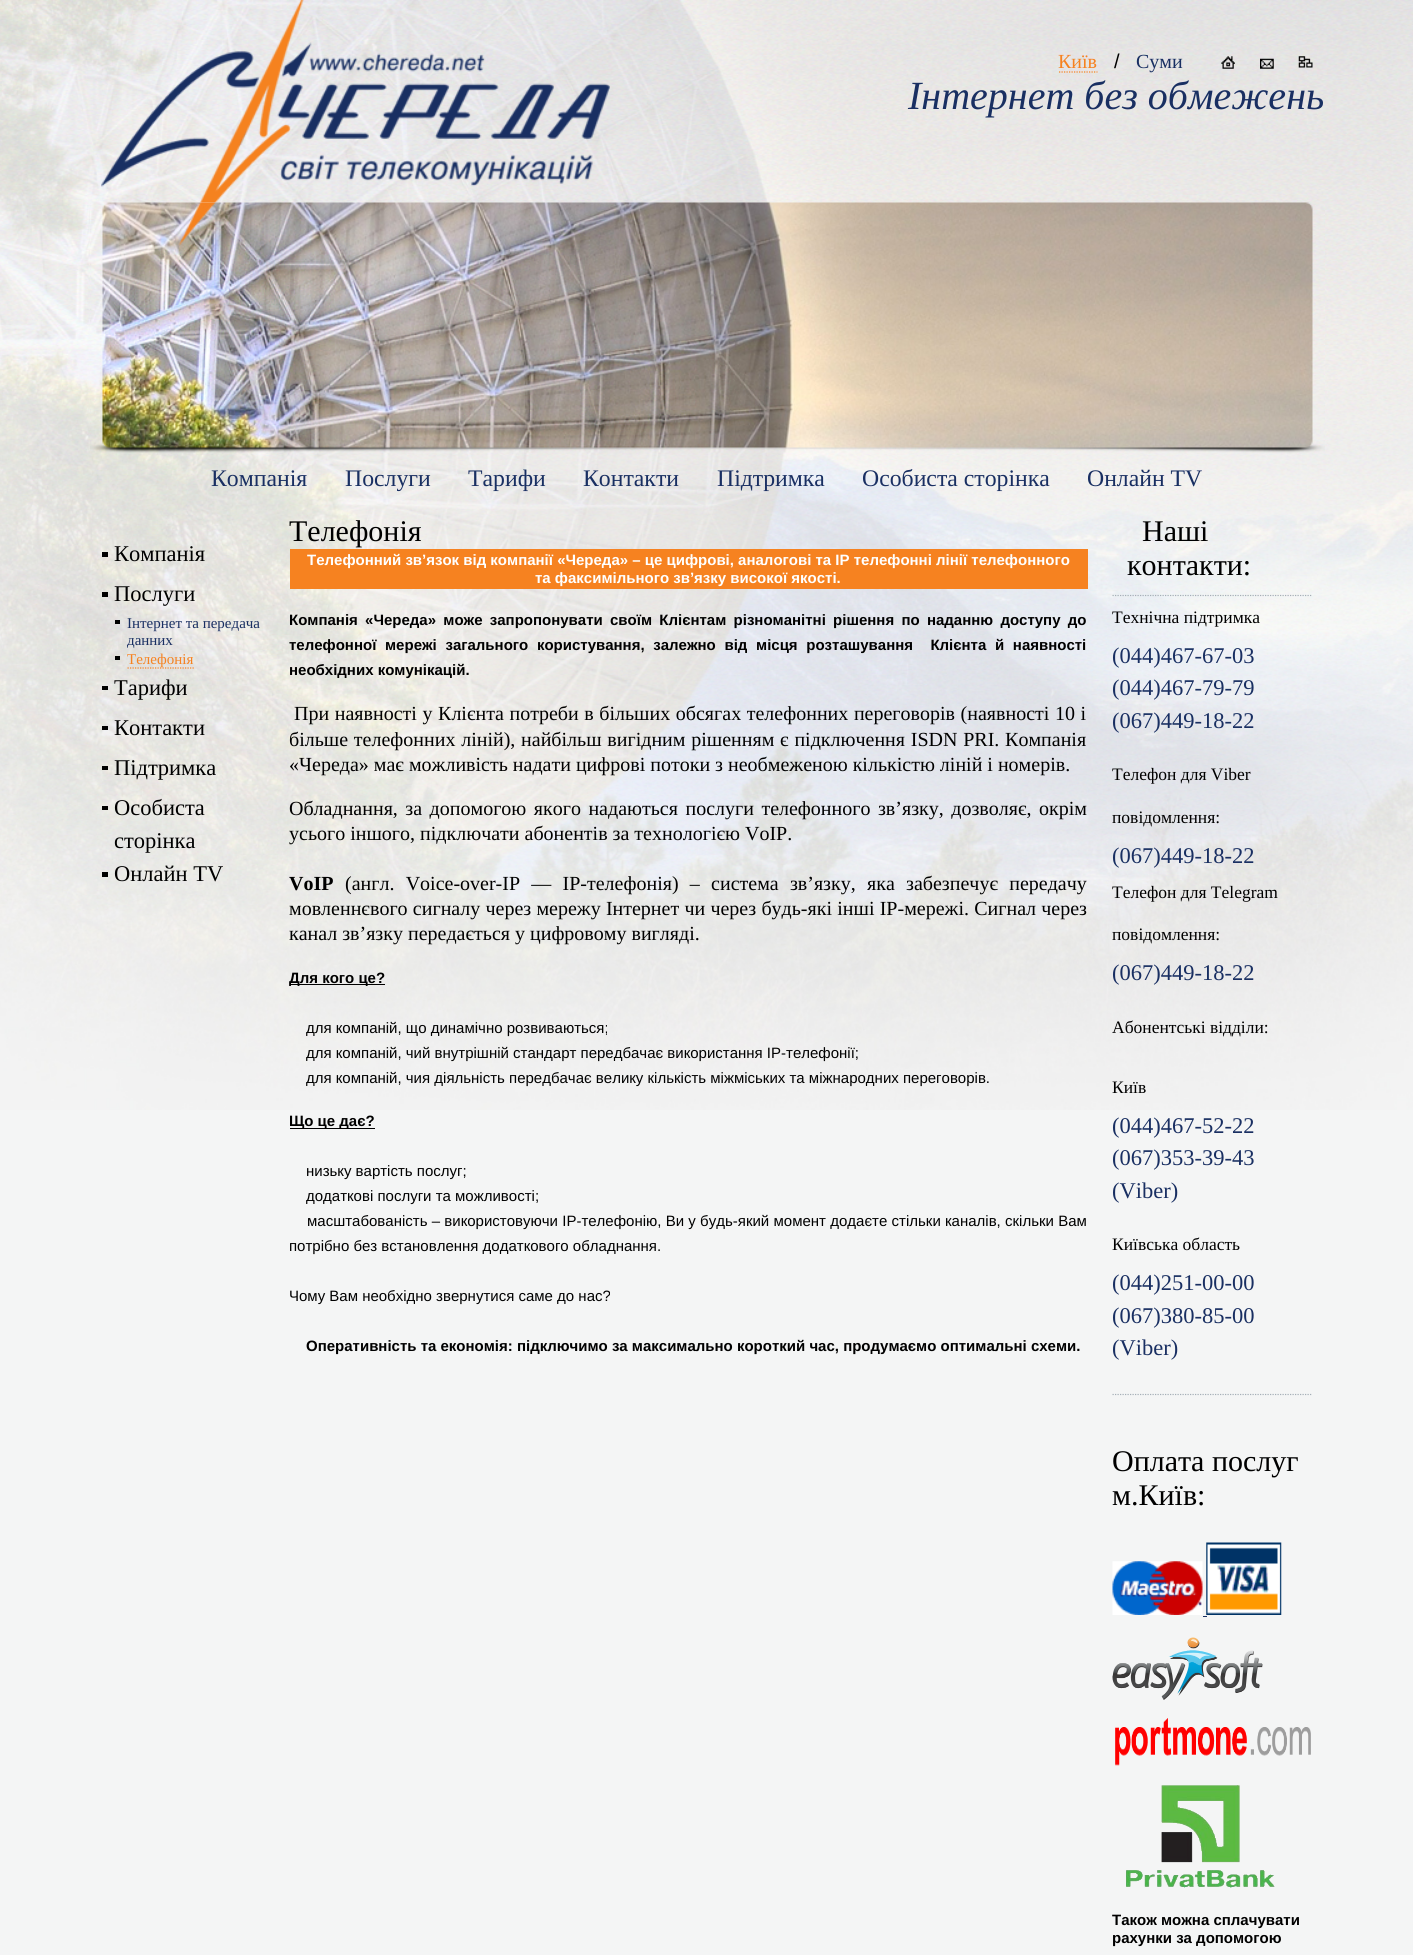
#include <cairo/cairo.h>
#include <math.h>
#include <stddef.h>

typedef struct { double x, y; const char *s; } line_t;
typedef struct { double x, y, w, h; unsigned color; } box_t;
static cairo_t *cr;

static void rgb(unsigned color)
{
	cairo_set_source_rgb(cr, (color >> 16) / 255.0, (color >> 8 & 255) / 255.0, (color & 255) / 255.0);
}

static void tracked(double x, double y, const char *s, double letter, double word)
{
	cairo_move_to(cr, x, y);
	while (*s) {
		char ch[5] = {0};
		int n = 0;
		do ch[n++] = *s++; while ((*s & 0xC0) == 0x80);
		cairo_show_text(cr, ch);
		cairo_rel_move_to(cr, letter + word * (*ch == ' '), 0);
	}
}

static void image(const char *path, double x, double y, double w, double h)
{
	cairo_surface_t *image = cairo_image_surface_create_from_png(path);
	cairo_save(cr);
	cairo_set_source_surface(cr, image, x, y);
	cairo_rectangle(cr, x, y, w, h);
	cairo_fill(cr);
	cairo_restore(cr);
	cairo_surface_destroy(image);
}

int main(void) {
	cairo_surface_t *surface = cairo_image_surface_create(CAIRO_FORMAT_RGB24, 1413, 1955);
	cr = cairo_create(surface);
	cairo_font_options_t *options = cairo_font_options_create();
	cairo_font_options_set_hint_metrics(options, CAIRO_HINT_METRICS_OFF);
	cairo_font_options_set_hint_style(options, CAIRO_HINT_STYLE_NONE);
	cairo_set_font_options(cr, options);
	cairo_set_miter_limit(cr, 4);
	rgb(0xf4f5f5);
	cairo_paint(cr);
	image("img/1.png", 0, 0, 1413, 1110);
	image("img/2.png", 101, 0, 509, 203);
	cairo_new_path(cr);
	cairo_move_to(cr, 1059, 72);
	cairo_line_to(cr, 1097.5, 72);
	rgb(0xf68220);
	cairo_set_line_width(cr, 1.2);
	cairo_set_dash(cr, (double[]){1.25, 1.25}, 2, 0);
	cairo_stroke(cr);
	image("img/3.png", 1221, 56, 14, 13);
	image("img/4.png", 1260, 58, 14, 11);
	image("img/5.png", 1298, 56, 15, 12);
	image("img/6.png", 90, 202, 1235, 251);
	{
		static const box_t items[] = {
			{102, 552, 6, 5, 0x000000},
			{102, 592, 6, 5, 0x000000},
			{115, 620, 5, 4, 0x000000},
			{115, 656, 5, 4, 0x000000},
		};
		for (size_t i = 0; i < sizeof items / sizeof *items; i++) {
			rgb(items[i].color);
			cairo_rectangle(cr, items[i].x, items[i].y, items[i].w, items[i].h);
			cairo_fill(cr);
		}
	}
	cairo_new_path(cr);
	cairo_move_to(cr, 127.5, 668);
	cairo_line_to(cr, 194, 668);
	rgb(0xf68220);
	cairo_stroke(cr);
	{
		static const box_t items[] = {
			{102, 686, 6, 4, 0x000000},
			{102, 726, 6, 4, 0x000000},
			{102, 766, 6, 4, 0x000000},
			{102, 806, 6, 4, 0x000000},
			{102, 872, 6, 5, 0x000000},
			{290, 549, 798, 40, 0xf68220},
			{290, 984, 95, 1, 0x000000},
			{290, 1128, 85, 1, 0x000000},
		};
		for (size_t i = 0; i < sizeof items / sizeof *items; i++) {
			rgb(items[i].color);
			cairo_rectangle(cr, items[i].x, items[i].y, items[i].w, items[i].h);
			cairo_fill(cr);
		}
	}
	cairo_new_path(cr);
	cairo_move_to(cr, 1112.5, 595.5);
	cairo_line_to(cr, 1312.5, 595.5);
	rgb(0xa5aeb6);
	cairo_stroke(cr);
	cairo_new_path(cr);
	cairo_move_to(cr, 1112.5, 1394.5);
	cairo_line_to(cr, 1312.5, 1394.5);
	cairo_stroke(cr);
	image("img/7.png", 1112, 1561, 91, 54);
	image("img/8.png", 1206, 1542, 76, 73);
	rgb(0x192f62);
	cairo_rectangle(cr, 1203, 1616, 4, 1);
	cairo_fill(cr);
	image("img/9.png", 1112, 1637, 151, 63);
	image("img/10.png", 1115, 1718, 196, 48);
	image("img/11.png", 1126, 1785, 149, 103);
	cairo_select_font_face(cr, "Liberation Serif", CAIRO_FONT_SLANT_NORMAL, CAIRO_FONT_WEIGHT_NORMAL);
	cairo_set_font_size(cr, 20);
	rgb(0xf68220);
	cairo_move_to(cr, 1058, 68);
	cairo_show_text(cr, "Київ");
	cairo_select_font_face(cr, "Liberation Sans", CAIRO_FONT_SLANT_NORMAL, CAIRO_FONT_WEIGHT_NORMAL);
	rgb(0x000000);
	cairo_move_to(cr, 1114, 68);
	cairo_show_text(cr, "/");
	cairo_select_font_face(cr, "Liberation Serif", CAIRO_FONT_SLANT_NORMAL, CAIRO_FONT_WEIGHT_NORMAL);
	rgb(0x192f62);
	cairo_move_to(cr, 1136, 68);
	cairo_show_text(cr, "Суми");
	cairo_select_font_face(cr, "Liberation Serif", CAIRO_FONT_SLANT_ITALIC, CAIRO_FONT_WEIGHT_NORMAL);
	cairo_set_font_size(cr, 40);
	cairo_move_to(cr, 908, 109);
	cairo_show_text(cr, "Інтернет без обмежень");
	cairo_select_font_face(cr, "Liberation Serif", CAIRO_FONT_SLANT_NORMAL, CAIRO_FONT_WEIGHT_NORMAL);
	cairo_set_font_size(cr, 23.75);
	{
		static const line_t items[] = {
			{211, 486, "Компанія"},
			{345, 486, "Послуги"},
			{468, 486, "Тарифи"},
			{583, 486, "Контакти"},
			{717, 486, "Підтримка"},
			{862, 486, "Особиста сторiнка"},
			{1087, 486, "Онлайн TV"},
		};
		for (size_t i = 0; i < sizeof items / sizeof *items; i++) {
			cairo_move_to(cr, items[i].x, items[i].y);
			cairo_show_text(cr, items[i].s);
		}
	}
	cairo_set_font_size(cr, 22.5);
	rgb(0x000000);
	cairo_move_to(cr, 114, 561);
	cairo_show_text(cr, "Компанія");
	cairo_move_to(cr, 114, 601);
	cairo_show_text(cr, "Послуги");
	cairo_set_font_size(cr, 15);
	rgb(0x192f62);
	cairo_move_to(cr, 127, 628);
	cairo_show_text(cr, "Інтернет та передача");
	cairo_move_to(cr, 127, 645);
	cairo_show_text(cr, "данних");
	rgb(0xf68220);
	cairo_move_to(cr, 127, 664);
	cairo_show_text(cr, "Телефонія");
	cairo_set_font_size(cr, 22.5);
	rgb(0x000000);
	{
		static const line_t items[] = {
			{114, 695, "Тарифи"},
			{114, 735, "Контакти"},
			{114, 775, "Підтримка"},
			{114, 815, "Особиста"},
			{114, 848, "сторiнка"},
			{114, 881, "Онлайн TV"},
		};
		for (size_t i = 0; i < sizeof items / sizeof *items; i++) {
			cairo_move_to(cr, items[i].x, items[i].y);
			cairo_show_text(cr, items[i].s);
		}
	}
	cairo_set_font_size(cr, 30);
	cairo_move_to(cr, 289, 541);
	cairo_show_text(cr, "Телефонія");
	cairo_select_font_face(cr, "Liberation Sans", CAIRO_FONT_SLANT_NORMAL, CAIRO_FONT_WEIGHT_BOLD);
	cairo_set_font_size(cr, 15);
	rgb(0xffffff);
	cairo_move_to(cr, 307, 565);
	cairo_show_text(cr, "Телефонний зв’язок від компанії «Череда» – це цифрові, аналогові та IP телефонні лінії телефонного");
	cairo_move_to(cr, 535, 583);
	cairo_show_text(cr, "та факсимільного зв’язку високої якості.");
	rgb(0x000000);
	tracked(289, 625, "Компанія «Череда» може запропонувати своїм Клієнтам різноманітні рішення по наданню доступу до", 0, 3.1);
	tracked(289, 650, "телефонної мережі загального користування, залежно від місця розташування  Клієнта й наявності", 0, 4.5);
	cairo_move_to(cr, 289, 675);
	cairo_show_text(cr, "необхідних комунікацій.");
	cairo_select_font_face(cr, "Liberation Serif", CAIRO_FONT_SLANT_NORMAL, CAIRO_FONT_WEIGHT_NORMAL);
	cairo_set_font_size(cr, 20);
	tracked(294, 720, "При наявності у Клієнта потреби в більших обсягах телефонних переговорів (наявності 10 і", 0, 0.6);
	tracked(289, 746, "більше телефонних ліній), найбільш вигідним рішенням є підключення ISDN PRI. Компанія", 0, 0.75);
	cairo_move_to(cr, 289, 771);
	cairo_show_text(cr, "«Череда» має можливість надати цифрові потоки з необмеженою кількістю ліній і номерів.");
	tracked(289, 815, "Обладнання, за допомогою якого надаються послуги телефонного зв’язку, дозволяє, окрім", 0, 2.5);
	cairo_move_to(cr, 289, 840);
	cairo_show_text(cr, "усього іншого, підключати абонентів за технологією VoIP.");
	cairo_select_font_face(cr, "Liberation Serif", CAIRO_FONT_SLANT_NORMAL, CAIRO_FONT_WEIGHT_BOLD);
	cairo_move_to(cr, 289, 890);
	cairo_show_text(cr, "VoIP");
	cairo_select_font_face(cr, "Liberation Serif", CAIRO_FONT_SLANT_NORMAL, CAIRO_FONT_WEIGHT_NORMAL);
	tracked(345, 890, "(англ. Voice-over-IP — IP-телефонія) – система зв’язку, яка забезпечує передачу", 0, 6.25);
	tracked(289, 915, "мовленнєвого сигналу через мережу Інтернет чи через будь-які інші ІР-мережі. Сигнал через", 0, 0.25);
	cairo_move_to(cr, 289, 940);
	cairo_show_text(cr, "канал зв’язку передається у цифровому вигляді.");
	cairo_select_font_face(cr, "Liberation Sans", CAIRO_FONT_SLANT_NORMAL, CAIRO_FONT_WEIGHT_BOLD);
	cairo_set_font_size(cr, 15);
	cairo_move_to(cr, 289, 983);
	cairo_show_text(cr, "Для кого це?");
	cairo_select_font_face(cr, "Liberation Sans", CAIRO_FONT_SLANT_NORMAL, CAIRO_FONT_WEIGHT_NORMAL);
	{
		static const line_t items[] = {
			{306, 1033, "для компаній, що динамічно розвиваються;"},
			{306, 1058, "для компаній, чий внутрішній стандарт передбачає використання IP-телефонії;"},
			{306, 1083, "для компаній, чия діяльність передбачає велику кількість міжміських та міжнародних переговорів."},
		};
		for (size_t i = 0; i < sizeof items / sizeof *items; i++) {
			cairo_move_to(cr, items[i].x, items[i].y);
			cairo_show_text(cr, items[i].s);
		}
	}
	cairo_select_font_face(cr, "Liberation Sans", CAIRO_FONT_SLANT_NORMAL, CAIRO_FONT_WEIGHT_BOLD);
	cairo_move_to(cr, 289, 1126);
	cairo_show_text(cr, "Що це дає?");
	cairo_select_font_face(cr, "Liberation Sans", CAIRO_FONT_SLANT_NORMAL, CAIRO_FONT_WEIGHT_NORMAL);
	cairo_move_to(cr, 306, 1176);
	cairo_show_text(cr, "низьку вартість послуг;");
	cairo_move_to(cr, 306, 1201);
	cairo_show_text(cr, "додаткові послуги та можливості;");
	tracked(307, 1226, "масштабованість – використовуючи IP-телефонію, Ви у будь-який момент додаєте стільки каналів, скільки Вам", 0, 0.1);
	cairo_move_to(cr, 289, 1251);
	cairo_show_text(cr, "потрібно без встановлення додаткового обладнання.");
	cairo_move_to(cr, 289, 1301);
	cairo_show_text(cr, "Чому Вам необхідно звернутися саме до нас?");
	cairo_select_font_face(cr, "Liberation Sans", CAIRO_FONT_SLANT_NORMAL, CAIRO_FONT_WEIGHT_BOLD);
	cairo_move_to(cr, 306, 1351);
	cairo_show_text(cr, "Оперативність та економія: підключимо за максимально короткий час, продумаємо оптимальні схеми.");
	cairo_select_font_face(cr, "Liberation Serif", CAIRO_FONT_SLANT_NORMAL, CAIRO_FONT_WEIGHT_NORMAL);
	cairo_set_font_size(cr, 30);
	cairo_move_to(cr, 1142, 541);
	cairo_show_text(cr, "Наші");
	cairo_move_to(cr, 1127, 575);
	cairo_show_text(cr, "контакти:");
	cairo_set_font_size(cr, 17.5);
	cairo_move_to(cr, 1112, 623);
	cairo_show_text(cr, "Технічна підтримка");
	cairo_set_font_size(cr, 22.5);
	rgb(0x192f62);
	{
		static const line_t items[] = {
			{1112, 663, "(044)467-67-03"},
			{1112, 695, "(044)467-79-79"},
			{1112, 728, "(067)449-18-22"},
		};
		for (size_t i = 0; i < sizeof items / sizeof *items; i++) {
			cairo_move_to(cr, items[i].x, items[i].y);
			cairo_show_text(cr, items[i].s);
		}
	}
	cairo_set_font_size(cr, 17.5);
	rgb(0x000000);
	cairo_move_to(cr, 1112, 780);
	cairo_show_text(cr, "Телефон для Viber");
	cairo_move_to(cr, 1112, 823);
	cairo_show_text(cr, "повідомлення:");
	cairo_set_font_size(cr, 22.5);
	rgb(0x192f62);
	cairo_move_to(cr, 1112, 863);
	cairo_show_text(cr, "(067)449-18-22");
	cairo_set_font_size(cr, 17.5);
	rgb(0x000000);
	cairo_move_to(cr, 1112, 898);
	cairo_show_text(cr, "Телефон для Telegram");
	cairo_move_to(cr, 1112, 940);
	cairo_show_text(cr, "повідомлення:");
	cairo_set_font_size(cr, 22.5);
	rgb(0x192f62);
	cairo_move_to(cr, 1112, 980);
	cairo_show_text(cr, "(067)449-18-22");
	cairo_set_font_size(cr, 17.5);
	rgb(0x000000);
	cairo_move_to(cr, 1112, 1033);
	cairo_show_text(cr, "Абонентські відділи:");
	cairo_move_to(cr, 1112, 1093);
	cairo_show_text(cr, "Київ");
	cairo_set_font_size(cr, 22.5);
	rgb(0x192f62);
	{
		static const line_t items[] = {
			{1112, 1133, "(044)467-52-22"},
			{1112, 1165, "(067)353-39-43"},
			{1112, 1198, "(Viber)"},
		};
		for (size_t i = 0; i < sizeof items / sizeof *items; i++) {
			cairo_move_to(cr, items[i].x, items[i].y);
			cairo_show_text(cr, items[i].s);
		}
	}
	cairo_set_font_size(cr, 17.5);
	rgb(0x000000);
	cairo_move_to(cr, 1112, 1250);
	cairo_show_text(cr, "Київська область");
	cairo_set_font_size(cr, 22.5);
	rgb(0x192f62);
	{
		static const line_t items[] = {
			{1112, 1290, "(044)251-00-00"},
			{1112, 1323, "(067)380-85-00"},
			{1112, 1355, "(Viber)"},
		};
		for (size_t i = 0; i < sizeof items / sizeof *items; i++) {
			cairo_move_to(cr, items[i].x, items[i].y);
			cairo_show_text(cr, items[i].s);
		}
	}
	cairo_set_font_size(cr, 30);
	rgb(0x000000);
	cairo_move_to(cr, 1112, 1471);
	cairo_show_text(cr, "Оплата послуг");
	cairo_move_to(cr, 1112, 1505);
	cairo_show_text(cr, "м.Київ:");
	cairo_select_font_face(cr, "Liberation Sans", CAIRO_FONT_SLANT_NORMAL, CAIRO_FONT_WEIGHT_BOLD);
	cairo_set_font_size(cr, 15);
	cairo_move_to(cr, 1112, 1925);
	cairo_show_text(cr, "Також можна сплачувати");
	cairo_move_to(cr, 1112, 1943);
	cairo_show_text(cr, "рахунки за допомогою");
	cairo_surface_write_to_png(surface, "page.png");
	cairo_font_options_destroy(options);
	cairo_destroy(cr);
	cairo_surface_destroy(surface);
	return 0;
}
